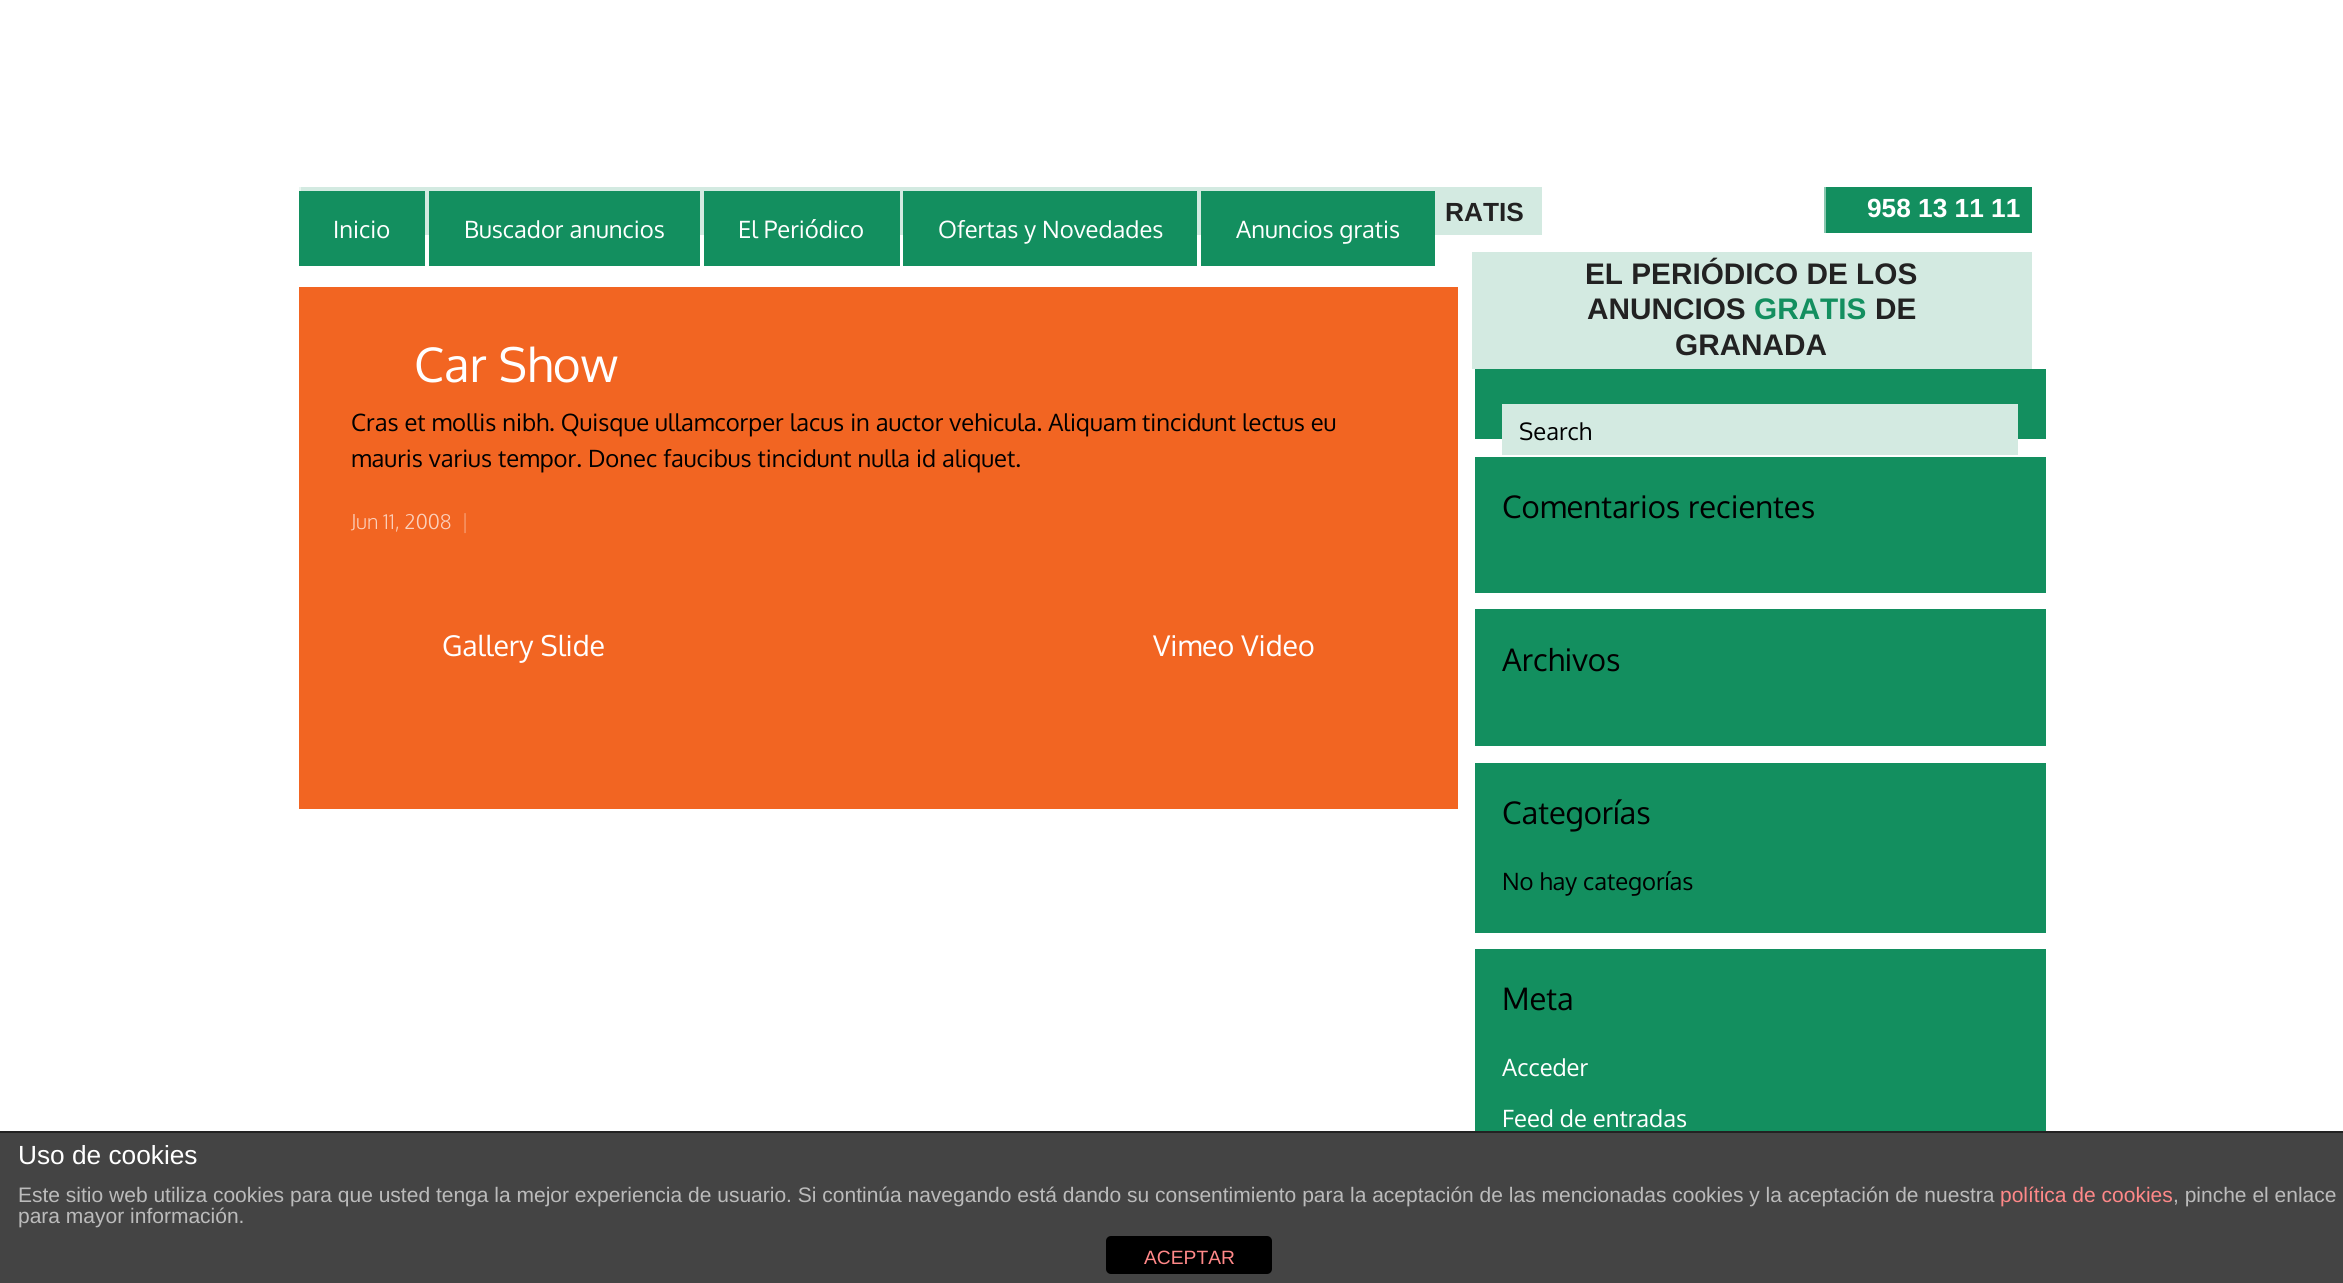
#include <cairo/cairo.h>
#include <math.h>
#include <stddef.h>

typedef struct { double x, y; const char *s; } line_t;
typedef struct { double x, y, w, h; unsigned color; } box_t;
static cairo_t *cr;

static void rgb(unsigned color)
{
	cairo_set_source_rgb(cr, (color >> 16) / 255.0, (color >> 8 & 255) / 255.0, (color & 255) / 255.0);
}

static void rrect(double x, double y, double w, double h, double r)
{
	cairo_new_sub_path(cr);
	cairo_arc(cr, x + w - r, y + h - r, r, 0, M_PI / 2);
	cairo_arc(cr, x + r, y + h - r, r, M_PI / 2, M_PI);
	cairo_arc(cr, x + r, y + r, r, M_PI, 1.5 * M_PI);
	cairo_arc(cr, x + w - r, y + r, r, 1.5 * M_PI, 2 * M_PI);
	cairo_close_path(cr);
}

int main(void) {
	cairo_surface_t *surface = cairo_image_surface_create(CAIRO_FORMAT_RGB24, 2343, 1283);
	cr = cairo_create(surface);
	cairo_font_options_t *options = cairo_font_options_create();
	cairo_font_options_set_hint_metrics(options, CAIRO_HINT_METRICS_OFF);
	cairo_font_options_set_hint_style(options, CAIRO_HINT_STYLE_NONE);
	cairo_set_font_options(cr, options);
	cairo_set_miter_limit(cr, 4);
	rgb(0xffffff);
	cairo_paint(cr);
	{
		static const box_t items[] = {
			{301, 187, 1241, 48, 0xd3eae1},
			{299, 187, 2, 4, 0xe9f5f0},
			{1826, 187, 206, 46, 0x138f5f},
			{1824, 187, 2, 46, 0x89c7af},
			{299, 191, 126, 75, 0x138f5f},
			{429, 191, 271, 75, 0x138f5f},
			{704, 191, 196, 75, 0x138f5f},
			{903, 191, 294, 75, 0x138f5f},
			{1201, 191, 234, 75, 0x138f5f},
			{1472, 252, 560, 117, 0xd3eae1},
			{299, 287, 1159, 522, 0xf26522},
			{1475, 369, 571, 70, 0x138f5f},
			{1502, 404, 516, 51, 0xd3eae1},
			{1475, 457, 571, 136, 0x138f5f},
			{1475, 609, 571, 137, 0x138f5f},
			{1475, 763, 571, 170, 0x138f5f},
			{1475, 949, 571, 182, 0x138f5f},
			{0, 1133, 2343, 150, 0x444444},
			{0, 1131, 2343, 2, 0x222222},
		};
		for (size_t i = 0; i < sizeof items / sizeof *items; i++) {
			rgb(items[i].color);
			cairo_rectangle(cr, items[i].x, items[i].y, items[i].w, items[i].h);
			cairo_fill(cr);
		}
	}
	rgb(0x000000);
	rrect(1106, 1236, 166, 38, 5);
	cairo_fill(cr);
	cairo_select_font_face(cr, "Liberation Sans", CAIRO_FONT_SLANT_NORMAL, CAIRO_FONT_WEIGHT_BOLD);
	cairo_set_font_size(cr, 26.25);
	rgb(0x222222);
	cairo_move_to(cr, 1445, 221);
	cairo_show_text(cr, "RATIS");
	rgb(0xffffff);
	cairo_move_to(cr, 1867, 217);
	cairo_show_text(cr, "958 13 11 11");
	cairo_select_font_face(cr, "Oxygen", CAIRO_FONT_SLANT_NORMAL, CAIRO_FONT_WEIGHT_NORMAL);
	cairo_set_font_size(cr, 23.8);
	{
		static const line_t items[] = {
			{333, 238, "Inicio"},
			{464, 238, "Buscador anuncios"},
			{738, 238, "El Periódico"},
			{938, 238, "Ofertas y Novedades"},
			{1236, 238, "Anuncios gratis"},
		};
		for (size_t i = 0; i < sizeof items / sizeof *items; i++) {
			cairo_move_to(cr, items[i].x, items[i].y);
			cairo_show_text(cr, items[i].s);
		}
	}
	cairo_select_font_face(cr, "Liberation Sans", CAIRO_FONT_SLANT_NORMAL, CAIRO_FONT_WEIGHT_BOLD);
	cairo_set_font_size(cr, 29.75);
	rgb(0x222222);
	cairo_move_to(cr, 1585, 284);
	cairo_show_text(cr, "EL PERIÓDICO DE LOS");
	cairo_move_to(cr, 1587, 319);
	cairo_show_text(cr, "ANUNCIOS");
	rgb(0x138f5f);
	cairo_move_to(cr, 1754, 319);
	cairo_show_text(cr, "GRATIS");
	rgb(0x222222);
	cairo_move_to(cr, 1875, 319);
	cairo_show_text(cr, "DE");
	cairo_move_to(cr, 1675, 355);
	cairo_show_text(cr, "GRANADA");
	cairo_select_font_face(cr, "Oxygen", CAIRO_FONT_SLANT_NORMAL, CAIRO_FONT_WEIGHT_NORMAL);
	cairo_set_font_size(cr, 47.5);
	rgb(0xffffff);
	cairo_move_to(cr, 414, 382);
	cairo_show_text(cr, "Car Show");
	cairo_set_font_size(cr, 23.8);
	rgb(0x000000);
	cairo_move_to(cr, 351, 431);
	cairo_show_text(cr, "Cras et mollis nibh. Quisque ullamcorper lacus in auctor vehicula. Aliquam tincidunt lectus eu");
	cairo_move_to(cr, 351, 467);
	cairo_show_text(cr, "mauris varius tempor. Donec faucibus tincidunt nulla id aliquet.");
	cairo_select_font_face(cr, "Oxygen Light", CAIRO_FONT_SLANT_NORMAL, CAIRO_FONT_WEIGHT_NORMAL);
	cairo_set_font_size(cr, 20.25);
	rgb(0xfbd1bd);
	cairo_move_to(cr, 351, 529);
	cairo_show_text(cr, "Jun 11, 2008");
	rgb(0xf7a37a);
	cairo_move_to(cr, 461, 529);
	cairo_show_text(cr, "|");
	cairo_select_font_face(cr, "Oxygen", CAIRO_FONT_SLANT_NORMAL, CAIRO_FONT_WEIGHT_NORMAL);
	cairo_set_font_size(cr, 28.5);
	rgb(0xffffff);
	cairo_move_to(cr, 442, 656);
	cairo_show_text(cr, "Gallery Slide");
	cairo_move_to(cr, 1153, 656);
	cairo_show_text(cr, "Vimeo Video");
	cairo_set_font_size(cr, 23.8);
	rgb(0x000000);
	cairo_move_to(cr, 1519, 440);
	cairo_show_text(cr, "Search");
	cairo_set_font_size(cr, 31);
	{
		static const line_t items[] = {
			{1502, 518, "Comentarios recientes"},
			{1502, 671, "Archivos"},
			{1502, 824, "Categorías"},
		};
		for (size_t i = 0; i < sizeof items / sizeof *items; i++) {
			cairo_move_to(cr, items[i].x, items[i].y);
			cairo_show_text(cr, items[i].s);
		}
	}
	cairo_set_font_size(cr, 23.8);
	cairo_move_to(cr, 1502, 890);
	cairo_show_text(cr, "No hay categorías");
	cairo_set_font_size(cr, 31);
	cairo_move_to(cr, 1502, 1010);
	cairo_show_text(cr, "Meta");
	cairo_set_font_size(cr, 23.8);
	rgb(0xffffff);
	cairo_move_to(cr, 1502, 1076);
	cairo_show_text(cr, "Acceder");
	cairo_move_to(cr, 1502, 1127);
	cairo_show_text(cr, "Feed de entradas");
	cairo_select_font_face(cr, "Liberation Sans", CAIRO_FONT_SLANT_NORMAL, CAIRO_FONT_WEIGHT_NORMAL);
	cairo_set_font_size(cr, 26.25);
	cairo_move_to(cr, 18, 1164);
	cairo_show_text(cr, "Uso de cookies");
	cairo_set_font_size(cr, 21);
	rgb(0xbbbbbb);
	cairo_move_to(cr, 18, 1202);
	cairo_show_text(cr, "Este sitio web utiliza cookies para que usted tenga la mejor experiencia de usuario. Si continúa navegando está dando su consentimiento para la aceptación de las mencionadas cookies y la aceptación de nuestra");
	rgb(0xff8888);
	cairo_move_to(cr, 2000, 1202);
	cairo_show_text(cr, "política de cookies");
	rgb(0xbbbbbb);
	cairo_move_to(cr, 2173, 1202);
	cairo_show_text(cr, ", pinche el enlace");
	cairo_move_to(cr, 18, 1223);
	cairo_show_text(cr, "para mayor información.");
	cairo_set_font_size(cr, 19.25);
	rgb(0xff8888);
	cairo_move_to(cr, 1144, 1264);
	cairo_show_text(cr, "ACEPTAR");
	cairo_surface_write_to_png(surface, "page.png");
	cairo_font_options_destroy(options);
	cairo_destroy(cr);
	cairo_surface_destroy(surface);
	return 0;
}
